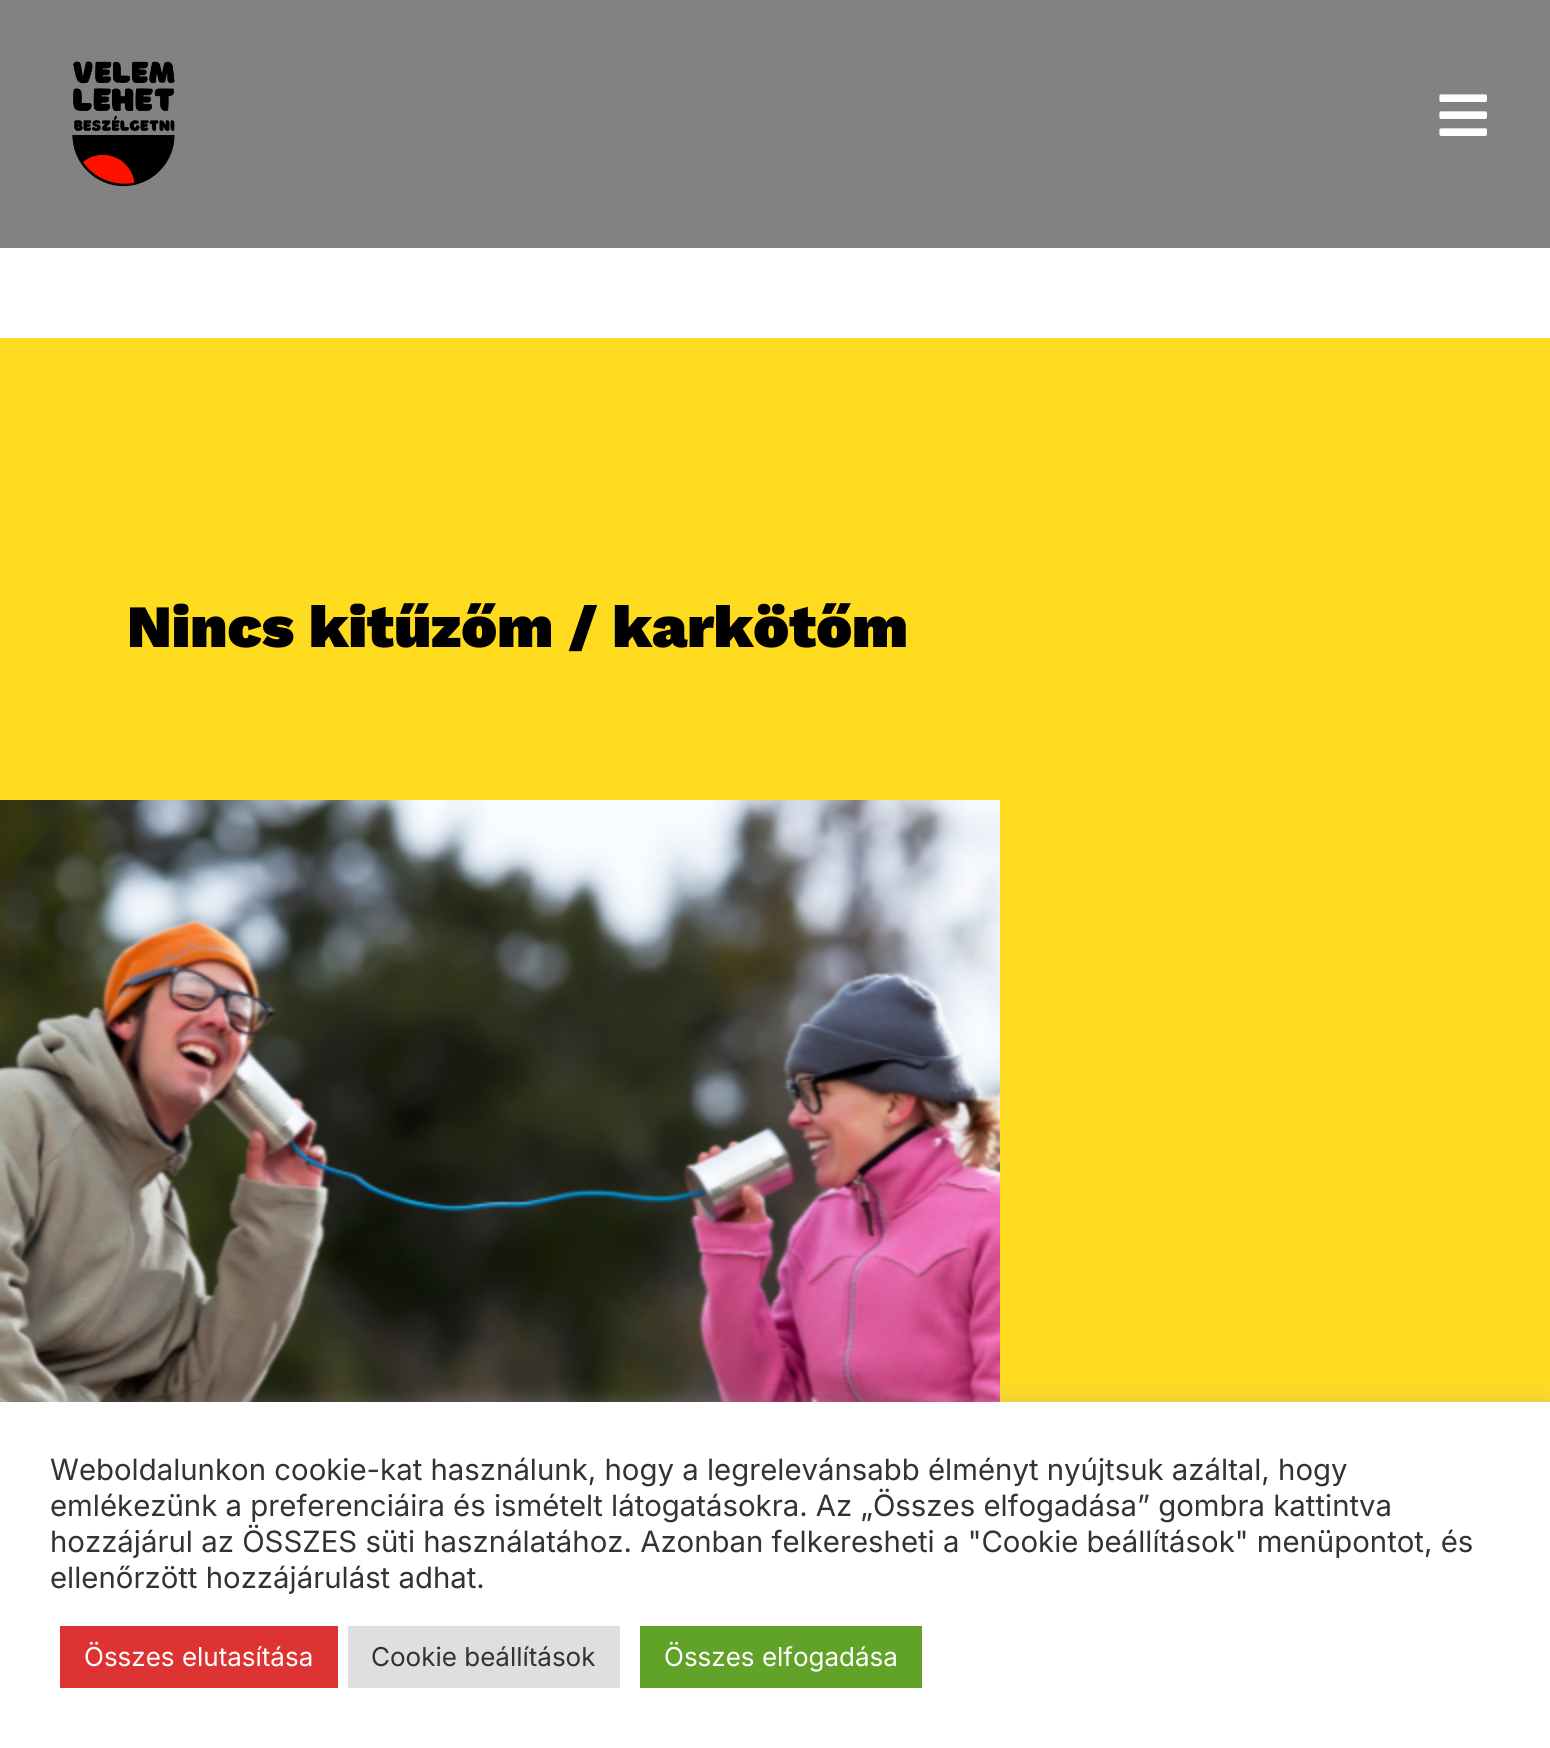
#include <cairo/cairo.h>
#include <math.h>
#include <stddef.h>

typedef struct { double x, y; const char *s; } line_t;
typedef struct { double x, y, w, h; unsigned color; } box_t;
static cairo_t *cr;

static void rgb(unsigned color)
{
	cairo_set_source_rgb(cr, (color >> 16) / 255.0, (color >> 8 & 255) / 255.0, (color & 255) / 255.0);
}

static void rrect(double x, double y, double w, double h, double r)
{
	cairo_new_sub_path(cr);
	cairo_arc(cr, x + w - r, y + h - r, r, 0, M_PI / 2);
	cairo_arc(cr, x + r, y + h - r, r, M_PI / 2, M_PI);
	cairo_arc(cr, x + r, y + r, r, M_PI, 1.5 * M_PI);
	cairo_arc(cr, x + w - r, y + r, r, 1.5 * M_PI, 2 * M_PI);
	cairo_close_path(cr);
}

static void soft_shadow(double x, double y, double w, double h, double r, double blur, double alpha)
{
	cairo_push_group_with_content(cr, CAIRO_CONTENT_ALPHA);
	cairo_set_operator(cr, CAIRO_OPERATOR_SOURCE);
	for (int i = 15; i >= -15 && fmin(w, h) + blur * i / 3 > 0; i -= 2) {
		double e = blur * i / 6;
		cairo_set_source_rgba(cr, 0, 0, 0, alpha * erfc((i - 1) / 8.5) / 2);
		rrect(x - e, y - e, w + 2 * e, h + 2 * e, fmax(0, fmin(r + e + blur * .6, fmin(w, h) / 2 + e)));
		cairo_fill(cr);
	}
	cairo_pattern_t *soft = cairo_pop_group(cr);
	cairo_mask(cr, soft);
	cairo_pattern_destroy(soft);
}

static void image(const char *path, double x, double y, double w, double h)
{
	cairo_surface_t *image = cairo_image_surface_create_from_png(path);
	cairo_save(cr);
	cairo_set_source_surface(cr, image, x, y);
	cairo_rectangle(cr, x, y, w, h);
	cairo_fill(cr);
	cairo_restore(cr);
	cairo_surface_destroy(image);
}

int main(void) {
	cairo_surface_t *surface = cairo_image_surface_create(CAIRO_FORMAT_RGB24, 1550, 1748);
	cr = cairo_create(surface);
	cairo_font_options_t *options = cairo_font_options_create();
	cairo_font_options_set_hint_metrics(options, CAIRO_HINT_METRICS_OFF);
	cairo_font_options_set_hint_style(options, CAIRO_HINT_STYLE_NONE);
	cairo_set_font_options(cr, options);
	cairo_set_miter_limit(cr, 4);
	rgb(0xffffff);
	cairo_paint(cr);
	rgb(0x828282);
	cairo_rectangle(cr, 0, 0, 1550, 248);
	cairo_fill(cr);
	image("img/1.png", 72, 61, 103, 126);
	image("img/2.png", 1439, 94, 48, 42);
	rgb(0xffdb1f);
	cairo_rectangle(cr, 0, 338, 1550, 1064);
	cairo_fill(cr);
	image("img/3.png", 0, 800, 1000, 602);
	rgb(0xacabab);
	soft_shadow(0, 1400, 1550, 346, 0, 10, 0.3);
	{
		static const box_t items[] = {
			{0, 1402, 1550, 346, 0xffffff},
			{60, 1626, 278, 62, 0xdd3333},
			{348, 1626, 272, 62, 0xdedfe0},
			{640, 1626, 282, 62, 0x61a229},
		};
		for (size_t i = 0; i < sizeof items / sizeof *items; i++) {
			rgb(items[i].color);
			cairo_rectangle(cr, items[i].x, items[i].y, items[i].w, items[i].h);
			cairo_fill(cr);
		}
	}
	cairo_select_font_face(cr, "Work Sans Black", CAIRO_FONT_SLANT_NORMAL, CAIRO_FONT_WEIGHT_NORMAL);
	cairo_set_font_size(cr, 60);
	rgb(0x000000);
	cairo_move_to(cr, 127, 647);
	cairo_show_text(cr, "Nincs kitűzőm / karkötőm");
	cairo_select_font_face(cr, "Inter", CAIRO_FONT_SLANT_NORMAL, CAIRO_FONT_WEIGHT_NORMAL);
	cairo_set_font_size(cr, 29.35);
	rgb(0x333333);
	{
		static const line_t items[] = {
			{50, 1480, "Weboldalunkon cookie-kat használunk, hogy a legrelevánsabb élményt nyújtsuk azáltal, hogy"},
			{50, 1516, "emlékezünk a preferenciáira és ismételt látogatásokra. Az „Összes elfogadása” gombra kattintva"},
			{50, 1552, "hozzájárul az ÖSSZES süti használatához. Azonban felkeresheti a \"Cookie beállítások\" menüpontot, és"},
			{50, 1588, "ellenőrzött hozzájárulást adhat."},
		};
		for (size_t i = 0; i < sizeof items / sizeof *items; i++) {
			cairo_move_to(cr, items[i].x, items[i].y);
			cairo_show_text(cr, items[i].s);
		}
	}
	cairo_set_font_size(cr, 26);
	rgb(0xffffff);
	cairo_move_to(cr, 84, 1666);
	cairo_show_text(cr, "Összes elutasítása");
	rgb(0x333333);
	cairo_move_to(cr, 371, 1666);
	cairo_show_text(cr, "Cookie beállítások");
	rgb(0xffffff);
	cairo_move_to(cr, 664, 1666);
	cairo_show_text(cr, "Összes elfogadása");
	cairo_surface_write_to_png(surface, "page.png");
	cairo_font_options_destroy(options);
	cairo_destroy(cr);
	cairo_surface_destroy(surface);
	return 0;
}
